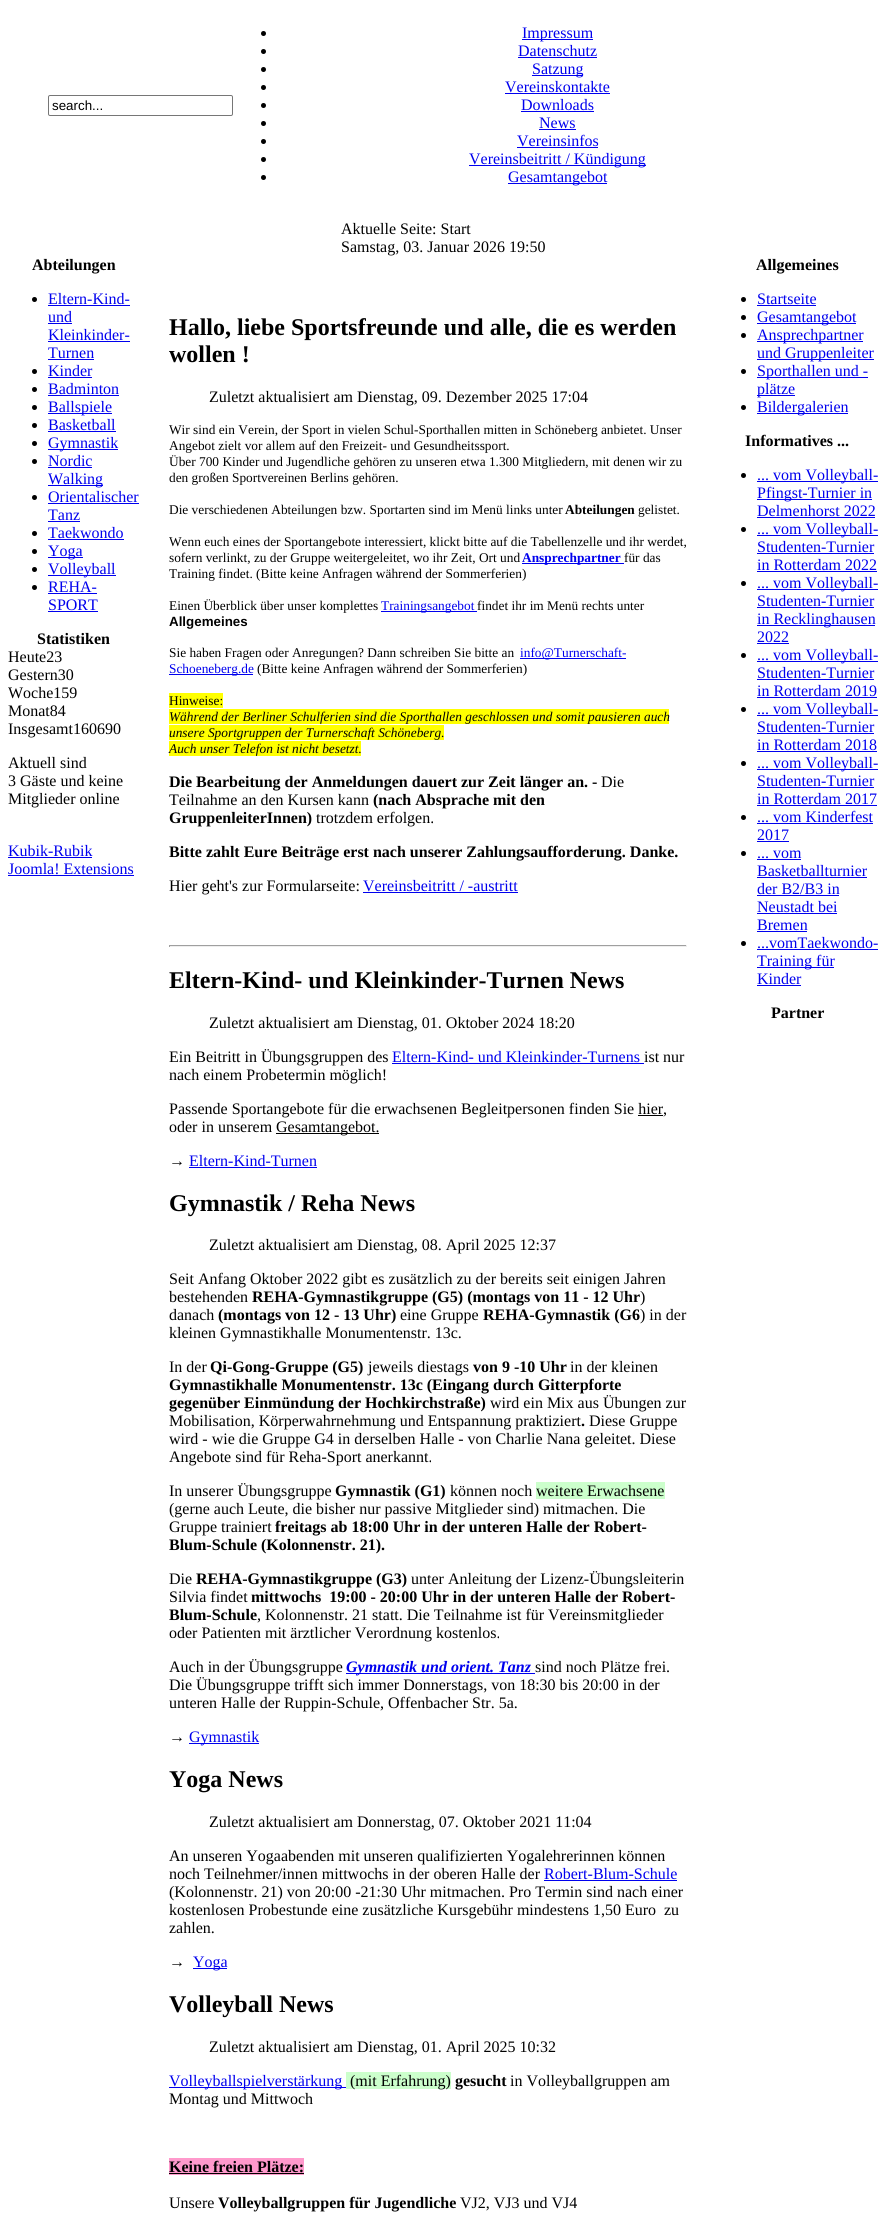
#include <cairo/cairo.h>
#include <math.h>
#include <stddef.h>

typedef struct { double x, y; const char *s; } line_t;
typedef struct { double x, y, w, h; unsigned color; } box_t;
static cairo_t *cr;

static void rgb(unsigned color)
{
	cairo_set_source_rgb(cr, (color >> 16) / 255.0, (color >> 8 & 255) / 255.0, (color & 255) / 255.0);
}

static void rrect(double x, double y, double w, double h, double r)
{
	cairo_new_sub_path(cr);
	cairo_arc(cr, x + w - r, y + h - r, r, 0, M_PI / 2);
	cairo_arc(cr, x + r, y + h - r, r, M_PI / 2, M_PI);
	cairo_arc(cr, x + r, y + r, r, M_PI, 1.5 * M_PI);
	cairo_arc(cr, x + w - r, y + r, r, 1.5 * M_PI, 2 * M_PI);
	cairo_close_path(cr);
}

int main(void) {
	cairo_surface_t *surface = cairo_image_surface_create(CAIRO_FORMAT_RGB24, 886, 2217);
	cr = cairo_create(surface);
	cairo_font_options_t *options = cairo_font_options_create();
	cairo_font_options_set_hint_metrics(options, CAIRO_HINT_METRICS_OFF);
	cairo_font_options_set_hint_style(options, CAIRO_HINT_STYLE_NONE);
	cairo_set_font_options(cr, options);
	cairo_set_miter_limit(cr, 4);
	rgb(0xffffff);
	cairo_paint(cr);
	rrect(48.5, 95.5, 184, 20, 1.5);
	rgb(0x767676);
	cairo_set_line_width(cr, 1);
	cairo_stroke(cr);
	rgb(0x000000);
	cairo_arc(cr, 263.5, 33.5, 2.5, 0, 2 * M_PI);
	cairo_fill(cr);
	rgb(0x0000ee);
	cairo_rectangle(cr, 522, 39, 71, 1);
	cairo_fill(cr);
	rgb(0x000000);
	cairo_arc(cr, 263.5, 51.5, 2.5, 0, 2 * M_PI);
	cairo_fill(cr);
	rgb(0x0000ee);
	cairo_rectangle(cr, 518, 57, 79, 1);
	cairo_fill(cr);
	rgb(0x000000);
	cairo_arc(cr, 263.5, 69.5, 2.5, 0, 2 * M_PI);
	cairo_fill(cr);
	rgb(0x0000ee);
	cairo_rectangle(cr, 532, 75, 51, 1);
	cairo_fill(cr);
	rgb(0x000000);
	cairo_arc(cr, 263.5, 87.5, 2.5, 0, 2 * M_PI);
	cairo_fill(cr);
	rgb(0x0000ee);
	cairo_rectangle(cr, 505, 93, 105, 1);
	cairo_fill(cr);
	rgb(0x000000);
	cairo_arc(cr, 263.5, 105.5, 2.5, 0, 2 * M_PI);
	cairo_fill(cr);
	rgb(0x0000ee);
	cairo_rectangle(cr, 521, 111, 73, 1);
	cairo_fill(cr);
	rgb(0x000000);
	cairo_arc(cr, 263.5, 123.5, 2.5, 0, 2 * M_PI);
	cairo_fill(cr);
	rgb(0x0000ee);
	cairo_rectangle(cr, 539, 129, 37, 1);
	cairo_fill(cr);
	rgb(0x000000);
	cairo_arc(cr, 263.5, 141.5, 2.5, 0, 2 * M_PI);
	cairo_fill(cr);
	rgb(0x0000ee);
	cairo_rectangle(cr, 517, 147, 81, 1);
	cairo_fill(cr);
	rgb(0x000000);
	cairo_arc(cr, 263.5, 159.5, 2.5, 0, 2 * M_PI);
	cairo_fill(cr);
	rgb(0x0000ee);
	cairo_rectangle(cr, 469, 165, 177, 1);
	cairo_fill(cr);
	rgb(0x000000);
	cairo_arc(cr, 263.5, 177.5, 2.5, 0, 2 * M_PI);
	cairo_fill(cr);
	rgb(0x0000ee);
	cairo_rectangle(cr, 508, 183, 99, 1);
	cairo_fill(cr);
	rgb(0x000000);
	cairo_arc(cr, 34.5, 299.5, 2.5, 0, 2 * M_PI);
	cairo_fill(cr);
	{
		static const box_t items[] = {
			{48, 305, 82, 1, 0x0000ee},
			{48, 323, 24, 1, 0x0000ee},
			{48, 341, 82, 1, 0x0000ee},
			{48, 359, 46, 1, 0x0000ee},
		};
		for (size_t i = 0; i < sizeof items / sizeof *items; i++) {
			rgb(items[i].color);
			cairo_rectangle(cr, items[i].x, items[i].y, items[i].w, items[i].h);
			cairo_fill(cr);
		}
	}
	rgb(0x000000);
	cairo_arc(cr, 34.5, 371.5, 2.5, 0, 2 * M_PI);
	cairo_fill(cr);
	rgb(0x0000ee);
	cairo_rectangle(cr, 48, 377, 44, 1);
	cairo_fill(cr);
	rgb(0x000000);
	cairo_arc(cr, 34.5, 389.5, 2.5, 0, 2 * M_PI);
	cairo_fill(cr);
	rgb(0x0000ee);
	cairo_rectangle(cr, 48, 395, 71, 1);
	cairo_fill(cr);
	rgb(0x000000);
	cairo_arc(cr, 34.5, 407.5, 2.5, 0, 2 * M_PI);
	cairo_fill(cr);
	rgb(0x0000ee);
	cairo_rectangle(cr, 48, 413, 64, 1);
	cairo_fill(cr);
	rgb(0x000000);
	cairo_arc(cr, 34.5, 425.5, 2.5, 0, 2 * M_PI);
	cairo_fill(cr);
	rgb(0x0000ee);
	cairo_rectangle(cr, 48, 431, 68, 1);
	cairo_fill(cr);
	rgb(0x000000);
	cairo_arc(cr, 34.5, 443.5, 2.5, 0, 2 * M_PI);
	cairo_fill(cr);
	rgb(0x0000ee);
	cairo_rectangle(cr, 48, 449, 70, 1);
	cairo_fill(cr);
	rgb(0x000000);
	cairo_arc(cr, 34.5, 461.5, 2.5, 0, 2 * M_PI);
	cairo_fill(cr);
	rgb(0x0000ee);
	cairo_rectangle(cr, 48, 467, 44, 1);
	cairo_fill(cr);
	cairo_rectangle(cr, 48, 485, 55, 1);
	cairo_fill(cr);
	rgb(0x000000);
	cairo_arc(cr, 34.5, 497.5, 2.5, 0, 2 * M_PI);
	cairo_fill(cr);
	rgb(0x0000ee);
	cairo_rectangle(cr, 48, 503, 91, 1);
	cairo_fill(cr);
	cairo_rectangle(cr, 48, 521, 32, 1);
	cairo_fill(cr);
	rgb(0x000000);
	cairo_arc(cr, 34.5, 533.5, 2.5, 0, 2 * M_PI);
	cairo_fill(cr);
	rgb(0x0000ee);
	cairo_rectangle(cr, 48, 539, 76, 1);
	cairo_fill(cr);
	rgb(0x000000);
	cairo_arc(cr, 34.5, 551.5, 2.5, 0, 2 * M_PI);
	cairo_fill(cr);
	rgb(0x0000ee);
	cairo_rectangle(cr, 48, 557, 35, 1);
	cairo_fill(cr);
	rgb(0x000000);
	cairo_arc(cr, 34.5, 569.5, 2.5, 0, 2 * M_PI);
	cairo_fill(cr);
	rgb(0x0000ee);
	cairo_rectangle(cr, 48, 575, 68, 1);
	cairo_fill(cr);
	rgb(0x000000);
	cairo_arc(cr, 34.5, 587.5, 2.5, 0, 2 * M_PI);
	cairo_fill(cr);
	{
		static const box_t items[] = {
			{48, 593, 49, 1, 0x0000ee},
			{48, 611, 50, 1, 0x0000ee},
			{8, 857, 84, 1, 0x0000ee},
			{8, 875, 126, 1, 0x0000ee},
			{522, 563, 102, 1, 0x0000ee},
			{381, 611, 96, 1, 0x0000ee},
			{520, 658, 106, 1, 0x0000ee},
			{169, 674, 84, 1, 0x0000ee},
			{169, 693, 54, 15, 0xffff00},
			{169, 709, 500, 15, 0xffff00},
			{169, 725, 275, 15, 0xffff00},
			{169, 741, 192, 15, 0xffff00},
			{363, 892, 155, 1, 0x0000ee},
			{169, 945, 518, 1, 0x9f9f9f},
			{686, 945, 1, 2, 0xeeeeee},
			{169, 946, 518, 1, 0xeeeeee},
			{169, 945, 1, 2, 0x9f9f9f},
			{392, 1063, 252, 1, 0x0000ee},
			{638, 1115, 25, 1, 0x000000},
			{276, 1133, 103, 1, 0x000000},
			{189, 1167, 128, 1, 0x0000ee},
			{536, 1482, 129, 17, 0xccffcc},
			{346, 1673, 185, 1, 0x0000ee},
			{531, 1673, 4, 1, 0x0000ee},
			{189, 1743, 70, 1, 0x0000ee},
			{544, 1880, 133, 1, 0x0000ee},
			{193, 1968, 34, 1, 0x0000ee},
			{169, 2087, 177, 1, 0x0000ee},
			{346, 2072, 105, 17, 0xccffcc},
			{169, 2158, 135, 17, 0xff99cc},
			{169, 2173, 135, 1, 0x000000},
		};
		for (size_t i = 0; i < sizeof items / sizeof *items; i++) {
			rgb(items[i].color);
			cairo_rectangle(cr, items[i].x, items[i].y, items[i].w, items[i].h);
			cairo_fill(cr);
		}
	}
	cairo_arc(cr, 743.5, 299.5, 2.5, 0, 2 * M_PI);
	cairo_fill(cr);
	rgb(0x0000ee);
	cairo_rectangle(cr, 757, 305, 59, 1);
	cairo_fill(cr);
	rgb(0x000000);
	cairo_arc(cr, 743.5, 317.5, 2.5, 0, 2 * M_PI);
	cairo_fill(cr);
	rgb(0x0000ee);
	cairo_rectangle(cr, 757, 323, 99, 1);
	cairo_fill(cr);
	rgb(0x000000);
	cairo_arc(cr, 743.5, 335.5, 2.5, 0, 2 * M_PI);
	cairo_fill(cr);
	rgb(0x0000ee);
	cairo_rectangle(cr, 757, 341, 106, 1);
	cairo_fill(cr);
	cairo_rectangle(cr, 757, 359, 117, 1);
	cairo_fill(cr);
	rgb(0x000000);
	cairo_arc(cr, 743.5, 371.5, 2.5, 0, 2 * M_PI);
	cairo_fill(cr);
	rgb(0x0000ee);
	cairo_rectangle(cr, 757, 377, 111, 1);
	cairo_fill(cr);
	cairo_rectangle(cr, 757, 395, 38, 1);
	cairo_fill(cr);
	rgb(0x000000);
	cairo_arc(cr, 743.5, 407.5, 2.5, 0, 2 * M_PI);
	cairo_fill(cr);
	rgb(0x0000ee);
	cairo_rectangle(cr, 757, 413, 91, 1);
	cairo_fill(cr);
	rgb(0x000000);
	cairo_arc(cr, 743.5, 475.5, 2.5, 0, 2 * M_PI);
	cairo_fill(cr);
	{
		static const box_t items[] = {
			{757, 481, 121, 1, 0x0000ee},
			{757, 499, 115, 1, 0x0000ee},
			{757, 517, 118, 1, 0x0000ee},
		};
		for (size_t i = 0; i < sizeof items / sizeof *items; i++) {
			rgb(items[i].color);
			cairo_rectangle(cr, items[i].x, items[i].y, items[i].w, items[i].h);
			cairo_fill(cr);
		}
	}
	rgb(0x000000);
	cairo_arc(cr, 743.5, 529.5, 2.5, 0, 2 * M_PI);
	cairo_fill(cr);
	{
		static const box_t items[] = {
			{757, 535, 121, 1, 0x0000ee},
			{757, 553, 117, 1, 0x0000ee},
			{757, 571, 120, 1, 0x0000ee},
		};
		for (size_t i = 0; i < sizeof items / sizeof *items; i++) {
			rgb(items[i].color);
			cairo_rectangle(cr, items[i].x, items[i].y, items[i].w, items[i].h);
			cairo_fill(cr);
		}
	}
	rgb(0x000000);
	cairo_arc(cr, 743.5, 583.5, 2.5, 0, 2 * M_PI);
	cairo_fill(cr);
	{
		static const box_t items[] = {
			{757, 589, 121, 1, 0x0000ee},
			{757, 607, 117, 1, 0x0000ee},
			{757, 625, 118, 1, 0x0000ee},
			{757, 643, 32, 1, 0x0000ee},
		};
		for (size_t i = 0; i < sizeof items / sizeof *items; i++) {
			rgb(items[i].color);
			cairo_rectangle(cr, items[i].x, items[i].y, items[i].w, items[i].h);
			cairo_fill(cr);
		}
	}
	rgb(0x000000);
	cairo_arc(cr, 743.5, 655.5, 2.5, 0, 2 * M_PI);
	cairo_fill(cr);
	{
		static const box_t items[] = {
			{757, 661, 121, 1, 0x0000ee},
			{757, 679, 117, 1, 0x0000ee},
			{757, 697, 120, 1, 0x0000ee},
		};
		for (size_t i = 0; i < sizeof items / sizeof *items; i++) {
			rgb(items[i].color);
			cairo_rectangle(cr, items[i].x, items[i].y, items[i].w, items[i].h);
			cairo_fill(cr);
		}
	}
	rgb(0x000000);
	cairo_arc(cr, 743.5, 709.5, 2.5, 0, 2 * M_PI);
	cairo_fill(cr);
	{
		static const box_t items[] = {
			{757, 715, 121, 1, 0x0000ee},
			{757, 733, 117, 1, 0x0000ee},
			{757, 751, 120, 1, 0x0000ee},
		};
		for (size_t i = 0; i < sizeof items / sizeof *items; i++) {
			rgb(items[i].color);
			cairo_rectangle(cr, items[i].x, items[i].y, items[i].w, items[i].h);
			cairo_fill(cr);
		}
	}
	rgb(0x000000);
	cairo_arc(cr, 743.5, 763.5, 2.5, 0, 2 * M_PI);
	cairo_fill(cr);
	{
		static const box_t items[] = {
			{757, 769, 121, 1, 0x0000ee},
			{757, 787, 117, 1, 0x0000ee},
			{757, 805, 120, 1, 0x0000ee},
		};
		for (size_t i = 0; i < sizeof items / sizeof *items; i++) {
			rgb(items[i].color);
			cairo_rectangle(cr, items[i].x, items[i].y, items[i].w, items[i].h);
			cairo_fill(cr);
		}
	}
	rgb(0x000000);
	cairo_arc(cr, 743.5, 817.5, 2.5, 0, 2 * M_PI);
	cairo_fill(cr);
	rgb(0x0000ee);
	cairo_rectangle(cr, 757, 823, 116, 1);
	cairo_fill(cr);
	cairo_rectangle(cr, 757, 841, 32, 1);
	cairo_fill(cr);
	rgb(0x000000);
	cairo_arc(cr, 743.5, 853.5, 2.5, 0, 2 * M_PI);
	cairo_fill(cr);
	{
		static const box_t items[] = {
			{757, 859, 44, 1, 0x0000ee},
			{757, 877, 110, 1, 0x0000ee},
			{757, 895, 82, 1, 0x0000ee},
			{757, 913, 80, 1, 0x0000ee},
			{757, 931, 50, 1, 0x0000ee},
		};
		for (size_t i = 0; i < sizeof items / sizeof *items; i++) {
			rgb(items[i].color);
			cairo_rectangle(cr, items[i].x, items[i].y, items[i].w, items[i].h);
			cairo_fill(cr);
		}
	}
	rgb(0x000000);
	cairo_arc(cr, 743.5, 943.5, 2.5, 0, 2 * M_PI);
	cairo_fill(cr);
	{
		static const box_t items[] = {
			{757, 949, 121, 1, 0x0000ee},
			{757, 967, 77, 1, 0x0000ee},
			{757, 985, 44, 1, 0x0000ee},
		};
		for (size_t i = 0; i < sizeof items / sizeof *items; i++) {
			rgb(items[i].color);
			cairo_rectangle(cr, items[i].x, items[i].y, items[i].w, items[i].h);
			cairo_fill(cr);
		}
	}
	cairo_select_font_face(cr, "Liberation Sans", CAIRO_FONT_SLANT_NORMAL, CAIRO_FONT_WEIGHT_NORMAL);
	cairo_set_font_size(cr, 13.35);
	rgb(0x000000);
	cairo_move_to(cr, 52, 110);
	cairo_show_text(cr, "search...");
	cairo_select_font_face(cr, "Liberation Serif", CAIRO_FONT_SLANT_NORMAL, CAIRO_FONT_WEIGHT_NORMAL);
	cairo_set_font_size(cr, 16);
	rgb(0x0000ee);
	{
		static const line_t items[] = {
			{522, 38, "Impressum"},
			{518, 56, "Datenschutz"},
			{532, 74, "Satzung"},
			{505, 92, "Vereinskontakte"},
			{521, 110, "Downloads"},
			{539, 128, "News"},
			{517, 146, "Vereinsinfos"},
			{469, 164, "Vereinsbeitritt / Kündigung"},
			{508, 182, "Gesamtangebot"},
		};
		for (size_t i = 0; i < sizeof items / sizeof *items; i++) {
			cairo_move_to(cr, items[i].x, items[i].y);
			cairo_show_text(cr, items[i].s);
		}
	}
	rgb(0x000000);
	cairo_move_to(cr, 341, 234);
	cairo_show_text(cr, "Aktuelle Seite: Start");
	cairo_move_to(cr, 341, 252);
	cairo_show_text(cr, "Samstag, 03. Januar 2026 19:50");
	cairo_select_font_face(cr, "Liberation Serif", CAIRO_FONT_SLANT_NORMAL, CAIRO_FONT_WEIGHT_BOLD);
	cairo_move_to(cr, 32, 270);
	cairo_show_text(cr, "Abteilungen");
	cairo_select_font_face(cr, "Liberation Serif", CAIRO_FONT_SLANT_NORMAL, CAIRO_FONT_WEIGHT_NORMAL);
	rgb(0x0000ee);
	{
		static const line_t items[] = {
			{48, 304, "Eltern-Kind-"},
			{48, 322, "und"},
			{48, 340, "Kleinkinder-"},
			{48, 358, "Turnen"},
			{48, 376, "Kinder"},
			{48, 394, "Badminton"},
			{48, 412, "Ballspiele"},
			{48, 430, "Basketball"},
			{48, 448, "Gymnastik"},
			{48, 466, "Nordic"},
			{48, 484, "Walking"},
			{48, 502, "Orientalischer"},
			{48, 520, "Tanz"},
			{48, 538, "Taekwondo"},
			{48, 556, "Yoga"},
			{48, 574, "Volleyball"},
			{48, 592, "REHA-"},
			{48, 610, "SPORT"},
		};
		for (size_t i = 0; i < sizeof items / sizeof *items; i++) {
			cairo_move_to(cr, items[i].x, items[i].y);
			cairo_show_text(cr, items[i].s);
		}
	}
	cairo_select_font_face(cr, "Liberation Serif", CAIRO_FONT_SLANT_NORMAL, CAIRO_FONT_WEIGHT_BOLD);
	rgb(0x000000);
	cairo_move_to(cr, 37, 644);
	cairo_show_text(cr, "Statistiken");
	cairo_select_font_face(cr, "Liberation Serif", CAIRO_FONT_SLANT_NORMAL, CAIRO_FONT_WEIGHT_NORMAL);
	{
		static const line_t items[] = {
			{8, 662, "Heute23"},
			{8, 680, "Gestern30"},
			{8, 698, "Woche159"},
			{8, 716, "Monat84"},
			{8, 734, "Insgesamt160690"},
			{8, 768, "Aktuell sind"},
			{8, 786, "3 Gäste und keine"},
			{8, 804, "Mitglieder online"},
		};
		for (size_t i = 0; i < sizeof items / sizeof *items; i++) {
			cairo_move_to(cr, items[i].x, items[i].y);
			cairo_show_text(cr, items[i].s);
		}
	}
	rgb(0x0000ee);
	cairo_move_to(cr, 8, 856);
	cairo_show_text(cr, "Kubik-Rubik");
	cairo_move_to(cr, 8, 874);
	cairo_show_text(cr, "Joomla! Extensions");
	cairo_select_font_face(cr, "Liberation Serif", CAIRO_FONT_SLANT_NORMAL, CAIRO_FONT_WEIGHT_BOLD);
	cairo_set_font_size(cr, 24);
	rgb(0x000000);
	cairo_move_to(cr, 169, 335);
	cairo_show_text(cr, "Hallo, liebe Sportsfreunde und alle, die es werden");
	cairo_move_to(cr, 169, 362);
	cairo_show_text(cr, "wollen !");
	cairo_select_font_face(cr, "Liberation Serif", CAIRO_FONT_SLANT_NORMAL, CAIRO_FONT_WEIGHT_NORMAL);
	cairo_set_font_size(cr, 16);
	cairo_move_to(cr, 209, 402);
	cairo_show_text(cr, "Zuletzt aktualisiert am Dienstag, 09. Dezember 2025 17:04");
	cairo_set_font_size(cr, 13.35);
	{
		static const line_t items[] = {
			{169, 434, "Wir sind ein Verein, der Sport in vielen Schul-Sporthallen mitten in Schöneberg anbietet. Unser"},
			{169, 450, "Angebot zielt vor allem auf den Freizeit- und Gesundheitssport."},
			{169, 466, "Über 700 Kinder und Jugendliche gehören zu unseren etwa 1.300 Mitgliedern, mit denen wir zu"},
			{169, 482, "den großen Sportvereinen Berlins gehören."},
			{169, 514, "Die verschiedenen Abteilungen bzw. Sportarten sind im Menü links unter"},
		};
		for (size_t i = 0; i < sizeof items / sizeof *items; i++) {
			cairo_move_to(cr, items[i].x, items[i].y);
			cairo_show_text(cr, items[i].s);
		}
	}
	cairo_select_font_face(cr, "Liberation Serif", CAIRO_FONT_SLANT_NORMAL, CAIRO_FONT_WEIGHT_BOLD);
	cairo_move_to(cr, 565, 514);
	cairo_show_text(cr, "Abteilungen");
	cairo_select_font_face(cr, "Liberation Serif", CAIRO_FONT_SLANT_NORMAL, CAIRO_FONT_WEIGHT_NORMAL);
	{
		static const line_t items[] = {
			{638, 514, "gelistet."},
			{169, 546, "Wenn euch eines der Sportangebote interessiert, klickt bitte auf die Tabellenzelle und ihr werdet,"},
			{169, 562, "sofern verlinkt, zu der Gruppe weitergeleitet, wo ihr Zeit, Ort und"},
		};
		for (size_t i = 0; i < sizeof items / sizeof *items; i++) {
			cairo_move_to(cr, items[i].x, items[i].y);
			cairo_show_text(cr, items[i].s);
		}
	}
	cairo_select_font_face(cr, "Liberation Serif", CAIRO_FONT_SLANT_NORMAL, CAIRO_FONT_WEIGHT_BOLD);
	rgb(0x0000ee);
	cairo_move_to(cr, 522, 562);
	cairo_show_text(cr, "Ansprechpartner");
	cairo_select_font_face(cr, "Liberation Serif", CAIRO_FONT_SLANT_NORMAL, CAIRO_FONT_WEIGHT_NORMAL);
	rgb(0x000000);
	{
		static const line_t items[] = {
			{624, 562, "für das"},
			{169, 578, "Training findet. (Bitte keine Anfragen während der Sommerferien)"},
			{169, 610, "Einen Überblick über unser komplettes"},
		};
		for (size_t i = 0; i < sizeof items / sizeof *items; i++) {
			cairo_move_to(cr, items[i].x, items[i].y);
			cairo_show_text(cr, items[i].s);
		}
	}
	rgb(0x0000ee);
	cairo_move_to(cr, 381, 610);
	cairo_show_text(cr, "Trainingsangebot");
	rgb(0x000000);
	cairo_move_to(cr, 477, 610);
	cairo_show_text(cr, "findet ihr im Menü rechts unter");
	cairo_select_font_face(cr, "Liberation Sans", CAIRO_FONT_SLANT_NORMAL, CAIRO_FONT_WEIGHT_BOLD);
	cairo_move_to(cr, 169, 626);
	cairo_show_text(cr, "Allgemeines");
	cairo_select_font_face(cr, "Liberation Serif", CAIRO_FONT_SLANT_NORMAL, CAIRO_FONT_WEIGHT_NORMAL);
	cairo_move_to(cr, 169, 657);
	cairo_show_text(cr, "Sie haben Fragen oder Anregungen? Dann schreiben Sie bitte an");
	rgb(0x0000ee);
	cairo_move_to(cr, 520, 657);
	cairo_show_text(cr, "info@Turnerschaft-");
	cairo_move_to(cr, 169, 673);
	cairo_show_text(cr, "Schoeneberg.de");
	rgb(0x000000);
	cairo_move_to(cr, 257, 673);
	cairo_show_text(cr, "(Bitte keine Anfragen während der Sommerferien)");
	cairo_move_to(cr, 169, 705);
	cairo_show_text(cr, "Hinweise:");
	cairo_select_font_face(cr, "Liberation Serif", CAIRO_FONT_SLANT_ITALIC, CAIRO_FONT_WEIGHT_NORMAL);
	{
		static const line_t items[] = {
			{169, 721, "Während der Berliner Schulferien sind die Sporthallen geschlossen und somit pausieren auch"},
			{169, 737, "unsere Sportgruppen der Turnerschaft Schöneberg."},
			{169, 753, "Auch unser Telefon ist nicht besetzt."},
		};
		for (size_t i = 0; i < sizeof items / sizeof *items; i++) {
			cairo_move_to(cr, items[i].x, items[i].y);
			cairo_show_text(cr, items[i].s);
		}
	}
	cairo_select_font_face(cr, "Liberation Serif", CAIRO_FONT_SLANT_NORMAL, CAIRO_FONT_WEIGHT_BOLD);
	cairo_set_font_size(cr, 16);
	cairo_move_to(cr, 169, 787);
	cairo_show_text(cr, "Die Bearbeitung der Anmeldungen dauert zur Zeit länger an. -");
	cairo_select_font_face(cr, "Liberation Serif", CAIRO_FONT_SLANT_NORMAL, CAIRO_FONT_WEIGHT_NORMAL);
	cairo_move_to(cr, 601, 787);
	cairo_show_text(cr, "Die");
	cairo_move_to(cr, 169, 805);
	cairo_show_text(cr, "Teilnahme an den Kursen kann");
	cairo_select_font_face(cr, "Liberation Serif", CAIRO_FONT_SLANT_NORMAL, CAIRO_FONT_WEIGHT_BOLD);
	cairo_move_to(cr, 373, 805);
	cairo_show_text(cr, "(nach Absprache mit den");
	cairo_move_to(cr, 169, 823);
	cairo_show_text(cr, "GruppenleiterInnen)");
	cairo_select_font_face(cr, "Liberation Serif", CAIRO_FONT_SLANT_NORMAL, CAIRO_FONT_WEIGHT_NORMAL);
	cairo_move_to(cr, 316, 823);
	cairo_show_text(cr, "trotzdem erfolgen.");
	cairo_select_font_face(cr, "Liberation Serif", CAIRO_FONT_SLANT_NORMAL, CAIRO_FONT_WEIGHT_BOLD);
	cairo_move_to(cr, 169, 857);
	cairo_show_text(cr, "Bitte zahlt Eure Beiträge erst nach unserer Zahlungsaufforderung. Danke.");
	cairo_select_font_face(cr, "Liberation Serif", CAIRO_FONT_SLANT_NORMAL, CAIRO_FONT_WEIGHT_NORMAL);
	cairo_move_to(cr, 169, 891);
	cairo_show_text(cr, "Hier geht's zur Formularseite:");
	rgb(0x0000ee);
	cairo_move_to(cr, 363, 891);
	cairo_show_text(cr, "Vereinsbeitritt / -austritt");
	cairo_select_font_face(cr, "Liberation Serif", CAIRO_FONT_SLANT_NORMAL, CAIRO_FONT_WEIGHT_BOLD);
	cairo_set_font_size(cr, 24);
	rgb(0x000000);
	cairo_move_to(cr, 169, 988);
	cairo_show_text(cr, "Eltern-Kind- und Kleinkinder-Turnen News");
	cairo_select_font_face(cr, "Liberation Serif", CAIRO_FONT_SLANT_NORMAL, CAIRO_FONT_WEIGHT_NORMAL);
	cairo_set_font_size(cr, 16);
	cairo_move_to(cr, 209, 1028);
	cairo_show_text(cr, "Zuletzt aktualisiert am Dienstag, 01. Oktober 2024 18:20");
	cairo_move_to(cr, 169, 1062);
	cairo_show_text(cr, "Ein Beitritt in Übungsgruppen des");
	rgb(0x0000ee);
	cairo_move_to(cr, 392, 1062);
	cairo_show_text(cr, "Eltern-Kind- und Kleinkinder-Turnens");
	rgb(0x000000);
	{
		static const line_t items[] = {
			{644, 1062, "ist nur"},
			{169, 1080, "nach einem Probetermin möglich!"},
			{169, 1114, "Passende Sportangebote für die erwachsenen Begleitpersonen finden Sie hier,"},
			{169, 1132, "oder in unserem"},
			{276, 1132, "Gesamtangebot."},
			{169, 1166, "→"},
		};
		for (size_t i = 0; i < sizeof items / sizeof *items; i++) {
			cairo_move_to(cr, items[i].x, items[i].y);
			cairo_show_text(cr, items[i].s);
		}
	}
	rgb(0x0000ee);
	cairo_move_to(cr, 189, 1166);
	cairo_show_text(cr, "Eltern-Kind-Turnen");
	cairo_select_font_face(cr, "Liberation Serif", CAIRO_FONT_SLANT_NORMAL, CAIRO_FONT_WEIGHT_BOLD);
	cairo_set_font_size(cr, 24);
	rgb(0x000000);
	cairo_move_to(cr, 169, 1211);
	cairo_show_text(cr, "Gymnastik / Reha News");
	cairo_select_font_face(cr, "Liberation Serif", CAIRO_FONT_SLANT_NORMAL, CAIRO_FONT_WEIGHT_NORMAL);
	cairo_set_font_size(cr, 16);
	{
		static const line_t items[] = {
			{209, 1250, "Zuletzt aktualisiert am Dienstag, 08. April 2025 12:37"},
			{169, 1284, "Seit Anfang Oktober 2022 gibt es zusätzlich zu der bereits seit einigen Jahren"},
			{169, 1302, "bestehenden"},
		};
		for (size_t i = 0; i < sizeof items / sizeof *items; i++) {
			cairo_move_to(cr, items[i].x, items[i].y);
			cairo_show_text(cr, items[i].s);
		}
	}
	cairo_select_font_face(cr, "Liberation Serif", CAIRO_FONT_SLANT_NORMAL, CAIRO_FONT_WEIGHT_BOLD);
	cairo_move_to(cr, 252, 1302);
	cairo_show_text(cr, "REHA-Gymnastikgruppe (G5) (montags von 11 - 12 Uhr");
	cairo_select_font_face(cr, "Liberation Serif", CAIRO_FONT_SLANT_NORMAL, CAIRO_FONT_WEIGHT_NORMAL);
	cairo_move_to(cr, 640, 1302);
	cairo_show_text(cr, ")");
	cairo_move_to(cr, 169, 1320);
	cairo_show_text(cr, "danach");
	cairo_select_font_face(cr, "Liberation Serif", CAIRO_FONT_SLANT_NORMAL, CAIRO_FONT_WEIGHT_BOLD);
	cairo_move_to(cr, 218, 1320);
	cairo_show_text(cr, "(montags von 12 - 13 Uhr)");
	cairo_select_font_face(cr, "Liberation Serif", CAIRO_FONT_SLANT_NORMAL, CAIRO_FONT_WEIGHT_NORMAL);
	cairo_move_to(cr, 400, 1320);
	cairo_show_text(cr, "eine Gruppe");
	cairo_select_font_face(cr, "Liberation Serif", CAIRO_FONT_SLANT_NORMAL, CAIRO_FONT_WEIGHT_BOLD);
	cairo_move_to(cr, 483, 1320);
	cairo_show_text(cr, "REHA-Gymnastik (G6");
	cairo_select_font_face(cr, "Liberation Serif", CAIRO_FONT_SLANT_NORMAL, CAIRO_FONT_WEIGHT_NORMAL);
	{
		static const line_t items[] = {
			{640, 1320, ") in der"},
			{169, 1338, "kleinen Gymnastikhalle Monumentenstr. 13c."},
			{169, 1372, "In der"},
		};
		for (size_t i = 0; i < sizeof items / sizeof *items; i++) {
			cairo_move_to(cr, items[i].x, items[i].y);
			cairo_show_text(cr, items[i].s);
		}
	}
	cairo_select_font_face(cr, "Liberation Serif", CAIRO_FONT_SLANT_NORMAL, CAIRO_FONT_WEIGHT_BOLD);
	cairo_move_to(cr, 210, 1372);
	cairo_show_text(cr, "Qi-Gong-Gruppe (G5)");
	cairo_select_font_face(cr, "Liberation Serif", CAIRO_FONT_SLANT_NORMAL, CAIRO_FONT_WEIGHT_NORMAL);
	cairo_move_to(cr, 368, 1372);
	cairo_show_text(cr, "jeweils diestags");
	cairo_select_font_face(cr, "Liberation Serif", CAIRO_FONT_SLANT_NORMAL, CAIRO_FONT_WEIGHT_BOLD);
	cairo_move_to(cr, 473, 1372);
	cairo_show_text(cr, "von 9 -10 Uhr");
	cairo_select_font_face(cr, "Liberation Serif", CAIRO_FONT_SLANT_NORMAL, CAIRO_FONT_WEIGHT_NORMAL);
	cairo_move_to(cr, 570, 1372);
	cairo_show_text(cr, "in der kleinen");
	cairo_select_font_face(cr, "Liberation Serif", CAIRO_FONT_SLANT_NORMAL, CAIRO_FONT_WEIGHT_BOLD);
	cairo_move_to(cr, 169, 1390);
	cairo_show_text(cr, "Gymnastikhalle Monumentenstr. 13c (Eingang durch Gitterpforte");
	cairo_move_to(cr, 169, 1408);
	cairo_show_text(cr, "gegenüber Einmündung der Hochkirchstraße)");
	cairo_select_font_face(cr, "Liberation Serif", CAIRO_FONT_SLANT_NORMAL, CAIRO_FONT_WEIGHT_NORMAL);
	cairo_move_to(cr, 490, 1408);
	cairo_show_text(cr, "wird ein Mix aus Übungen zur");
	cairo_move_to(cr, 169, 1426);
	cairo_show_text(cr, "Mobilisation, Körperwahrnehmung und Entspannung praktiziert");
	cairo_select_font_face(cr, "Liberation Serif", CAIRO_FONT_SLANT_NORMAL, CAIRO_FONT_WEIGHT_BOLD);
	cairo_move_to(cr, 581, 1426);
	cairo_show_text(cr, ".");
	cairo_select_font_face(cr, "Liberation Serif", CAIRO_FONT_SLANT_NORMAL, CAIRO_FONT_WEIGHT_NORMAL);
	{
		static const line_t items[] = {
			{589, 1426, "Diese Gruppe"},
			{169, 1444, "wird - wie die Gruppe G4 in derselben Halle - von Charlie Nana geleitet. Diese"},
			{169, 1462, "Angebote sind für Reha-Sport anerkannt."},
			{169, 1496, "In unserer Übungsgruppe"},
		};
		for (size_t i = 0; i < sizeof items / sizeof *items; i++) {
			cairo_move_to(cr, items[i].x, items[i].y);
			cairo_show_text(cr, items[i].s);
		}
	}
	cairo_select_font_face(cr, "Liberation Serif", CAIRO_FONT_SLANT_NORMAL, CAIRO_FONT_WEIGHT_BOLD);
	cairo_move_to(cr, 335, 1496);
	cairo_show_text(cr, "Gymnastik (G1)");
	cairo_select_font_face(cr, "Liberation Serif", CAIRO_FONT_SLANT_NORMAL, CAIRO_FONT_WEIGHT_NORMAL);
	{
		static const line_t items[] = {
			{450, 1496, "können noch"},
			{536, 1496, "weitere Erwachsene"},
			{169, 1514, "(gerne auch Leute, die bisher nur passive Mitglieder sind) mitmachen. Die"},
			{169, 1532, "Gruppe trainiert"},
		};
		for (size_t i = 0; i < sizeof items / sizeof *items; i++) {
			cairo_move_to(cr, items[i].x, items[i].y);
			cairo_show_text(cr, items[i].s);
		}
	}
	cairo_select_font_face(cr, "Liberation Serif", CAIRO_FONT_SLANT_NORMAL, CAIRO_FONT_WEIGHT_BOLD);
	cairo_move_to(cr, 275, 1532);
	cairo_show_text(cr, "freitags ab 18:00 Uhr in der unteren Halle der Robert-");
	cairo_move_to(cr, 169, 1550);
	cairo_show_text(cr, "Blum-Schule (Kolonnenstr. 21).");
	cairo_select_font_face(cr, "Liberation Serif", CAIRO_FONT_SLANT_NORMAL, CAIRO_FONT_WEIGHT_NORMAL);
	cairo_move_to(cr, 169, 1584);
	cairo_show_text(cr, "Die");
	cairo_select_font_face(cr, "Liberation Serif", CAIRO_FONT_SLANT_NORMAL, CAIRO_FONT_WEIGHT_BOLD);
	cairo_move_to(cr, 196, 1584);
	cairo_show_text(cr, "REHA-Gymnastikgruppe (G3)");
	cairo_select_font_face(cr, "Liberation Serif", CAIRO_FONT_SLANT_NORMAL, CAIRO_FONT_WEIGHT_NORMAL);
	cairo_move_to(cr, 411, 1584);
	cairo_show_text(cr, "unter Anleitung der Lizenz-Übungsleiterin");
	cairo_move_to(cr, 169, 1602);
	cairo_show_text(cr, "Silvia findet");
	cairo_select_font_face(cr, "Liberation Serif", CAIRO_FONT_SLANT_NORMAL, CAIRO_FONT_WEIGHT_BOLD);
	cairo_move_to(cr, 251, 1602);
	cairo_show_text(cr, "mittwochs  19:00 - 20:00 Uhr in der unteren Halle der Robert-");
	cairo_move_to(cr, 169, 1620);
	cairo_show_text(cr, "Blum-Schule");
	cairo_select_font_face(cr, "Liberation Serif", CAIRO_FONT_SLANT_NORMAL, CAIRO_FONT_WEIGHT_NORMAL);
	{
		static const line_t items[] = {
			{257, 1620, ", Kolonnenstr. 21 statt. Die Teilnahme ist für Vereinsmitglieder"},
			{169, 1638, "oder Patienten mit ärztlicher Verordnung kostenlos."},
			{169, 1672, "Auch in der Übungsgruppe"},
		};
		for (size_t i = 0; i < sizeof items / sizeof *items; i++) {
			cairo_move_to(cr, items[i].x, items[i].y);
			cairo_show_text(cr, items[i].s);
		}
	}
	cairo_select_font_face(cr, "Liberation Serif", CAIRO_FONT_SLANT_ITALIC, CAIRO_FONT_WEIGHT_BOLD);
	rgb(0x0000ee);
	cairo_move_to(cr, 346, 1672);
	cairo_show_text(cr, "Gymnastik und orient. Tanz");
	cairo_select_font_face(cr, "Liberation Serif", CAIRO_FONT_SLANT_NORMAL, CAIRO_FONT_WEIGHT_NORMAL);
	rgb(0x000000);
	{
		static const line_t items[] = {
			{535, 1672, "sind noch Plätze frei."},
			{169, 1690, "Die Übungsgruppe trifft sich immer Donnerstags, von 18:30 bis 20:00 in der"},
			{169, 1708, "unteren Halle der Ruppin-Schule, Offenbacher Str. 5a."},
			{169, 1742, "→"},
		};
		for (size_t i = 0; i < sizeof items / sizeof *items; i++) {
			cairo_move_to(cr, items[i].x, items[i].y);
			cairo_show_text(cr, items[i].s);
		}
	}
	rgb(0x0000ee);
	cairo_move_to(cr, 189, 1742);
	cairo_show_text(cr, "Gymnastik");
	cairo_select_font_face(cr, "Liberation Serif", CAIRO_FONT_SLANT_NORMAL, CAIRO_FONT_WEIGHT_BOLD);
	cairo_set_font_size(cr, 24);
	rgb(0x000000);
	cairo_move_to(cr, 169, 1787);
	cairo_show_text(cr, "Yoga News");
	cairo_select_font_face(cr, "Liberation Serif", CAIRO_FONT_SLANT_NORMAL, CAIRO_FONT_WEIGHT_NORMAL);
	cairo_set_font_size(cr, 16);
	{
		static const line_t items[] = {
			{209, 1827, "Zuletzt aktualisiert am Donnerstag, 07. Oktober 2021 11:04"},
			{169, 1861, "An unseren Yogaabenden mit unseren qualifizierten Yogalehrerinnen können"},
			{169, 1879, "noch Teilnehmer/innen mittwochs in der oberen Halle der"},
		};
		for (size_t i = 0; i < sizeof items / sizeof *items; i++) {
			cairo_move_to(cr, items[i].x, items[i].y);
			cairo_show_text(cr, items[i].s);
		}
	}
	rgb(0x0000ee);
	cairo_move_to(cr, 544, 1879);
	cairo_show_text(cr, "Robert-Blum-Schule");
	rgb(0x000000);
	{
		static const line_t items[] = {
			{169, 1897, "(Kolonnenstr. 21) von 20:00 -21:30 Uhr mitmachen. Pro Termin sind nach einer"},
			{169, 1915, "kostenlosen Probestunde eine zusätzliche Kursgebühr mindestens 1,50 Euro  zu"},
			{169, 1933, "zahlen."},
			{169, 1967, "→"},
		};
		for (size_t i = 0; i < sizeof items / sizeof *items; i++) {
			cairo_move_to(cr, items[i].x, items[i].y);
			cairo_show_text(cr, items[i].s);
		}
	}
	rgb(0x0000ee);
	cairo_move_to(cr, 193, 1967);
	cairo_show_text(cr, "Yoga");
	cairo_select_font_face(cr, "Liberation Serif", CAIRO_FONT_SLANT_NORMAL, CAIRO_FONT_WEIGHT_BOLD);
	cairo_set_font_size(cr, 24);
	rgb(0x000000);
	cairo_move_to(cr, 169, 2012);
	cairo_show_text(cr, "Volleyball News");
	cairo_select_font_face(cr, "Liberation Serif", CAIRO_FONT_SLANT_NORMAL, CAIRO_FONT_WEIGHT_NORMAL);
	cairo_set_font_size(cr, 16);
	cairo_move_to(cr, 209, 2052);
	cairo_show_text(cr, "Zuletzt aktualisiert am Dienstag, 01. April 2025 10:32");
	rgb(0x0000ee);
	cairo_move_to(cr, 169, 2086);
	cairo_show_text(cr, "Volleyballspielverstärkung");
	rgb(0x000000);
	cairo_move_to(cr, 350, 2086);
	cairo_show_text(cr, "(mit Erfahrung)");
	cairo_select_font_face(cr, "Liberation Serif", CAIRO_FONT_SLANT_NORMAL, CAIRO_FONT_WEIGHT_BOLD);
	cairo_move_to(cr, 455, 2086);
	cairo_show_text(cr, "gesucht");
	cairo_select_font_face(cr, "Liberation Serif", CAIRO_FONT_SLANT_NORMAL, CAIRO_FONT_WEIGHT_NORMAL);
	cairo_move_to(cr, 510, 2086);
	cairo_show_text(cr, "in Volleyballgruppen am");
	cairo_move_to(cr, 169, 2104);
	cairo_show_text(cr, "Montag und Mittwoch");
	cairo_select_font_face(cr, "Liberation Serif", CAIRO_FONT_SLANT_NORMAL, CAIRO_FONT_WEIGHT_BOLD);
	cairo_move_to(cr, 169, 2172);
	cairo_show_text(cr, "Keine freien Plätze:");
	cairo_select_font_face(cr, "Liberation Serif", CAIRO_FONT_SLANT_NORMAL, CAIRO_FONT_WEIGHT_NORMAL);
	cairo_move_to(cr, 169, 2208);
	cairo_show_text(cr, "Unsere");
	cairo_select_font_face(cr, "Liberation Serif", CAIRO_FONT_SLANT_NORMAL, CAIRO_FONT_WEIGHT_BOLD);
	cairo_move_to(cr, 218, 2208);
	cairo_show_text(cr, "Volleyballgruppen für Jugendliche");
	cairo_select_font_face(cr, "Liberation Serif", CAIRO_FONT_SLANT_NORMAL, CAIRO_FONT_WEIGHT_NORMAL);
	cairo_move_to(cr, 460, 2208);
	cairo_show_text(cr, "VJ2, VJ3 und VJ4");
	cairo_select_font_face(cr, "Liberation Serif", CAIRO_FONT_SLANT_NORMAL, CAIRO_FONT_WEIGHT_BOLD);
	cairo_move_to(cr, 756, 270);
	cairo_show_text(cr, "Allgemeines");
	cairo_select_font_face(cr, "Liberation Serif", CAIRO_FONT_SLANT_NORMAL, CAIRO_FONT_WEIGHT_NORMAL);
	rgb(0x0000ee);
	{
		static const line_t items[] = {
			{757, 304, "Startseite"},
			{757, 322, "Gesamtangebot"},
			{757, 340, "Ansprechpartner"},
			{757, 358, "und Gruppenleiter"},
			{757, 376, "Sporthallen und -"},
			{757, 394, "plätze"},
			{757, 412, "Bildergalerien"},
		};
		for (size_t i = 0; i < sizeof items / sizeof *items; i++) {
			cairo_move_to(cr, items[i].x, items[i].y);
			cairo_show_text(cr, items[i].s);
		}
	}
	cairo_select_font_face(cr, "Liberation Serif", CAIRO_FONT_SLANT_NORMAL, CAIRO_FONT_WEIGHT_BOLD);
	rgb(0x000000);
	cairo_move_to(cr, 745, 446);
	cairo_show_text(cr, "Informatives ...");
	cairo_select_font_face(cr, "Liberation Serif", CAIRO_FONT_SLANT_NORMAL, CAIRO_FONT_WEIGHT_NORMAL);
	rgb(0x0000ee);
	{
		static const line_t items[] = {
			{757, 480, "... vom Volleyball-"},
			{757, 498, "Pfingst-Turnier in"},
			{757, 516, "Delmenhorst 2022"},
			{757, 534, "... vom Volleyball-"},
			{757, 552, "Studenten-Turnier"},
			{757, 570, "in Rotterdam 2022"},
			{757, 588, "... vom Volleyball-"},
			{757, 606, "Studenten-Turnier"},
			{757, 624, "in Recklinghausen"},
			{757, 642, "2022"},
			{757, 660, "... vom Volleyball-"},
			{757, 678, "Studenten-Turnier"},
			{757, 696, "in Rotterdam 2019"},
			{757, 714, "... vom Volleyball-"},
			{757, 732, "Studenten-Turnier"},
			{757, 750, "in Rotterdam 2018"},
			{757, 768, "... vom Volleyball-"},
			{757, 786, "Studenten-Turnier"},
			{757, 804, "in Rotterdam 2017"},
			{757, 822, "... vom Kinderfest"},
			{757, 840, "2017"},
			{757, 858, "... vom"},
			{757, 876, "Basketballturnier"},
			{757, 894, "der B2/B3 in"},
			{757, 912, "Neustadt bei"},
			{757, 930, "Bremen"},
			{757, 948, "...vomTaekwondo-"},
			{757, 966, "Training für"},
			{757, 984, "Kinder"},
		};
		for (size_t i = 0; i < sizeof items / sizeof *items; i++) {
			cairo_move_to(cr, items[i].x, items[i].y);
			cairo_show_text(cr, items[i].s);
		}
	}
	cairo_select_font_face(cr, "Liberation Serif", CAIRO_FONT_SLANT_NORMAL, CAIRO_FONT_WEIGHT_BOLD);
	rgb(0x000000);
	cairo_move_to(cr, 771, 1018);
	cairo_show_text(cr, "Partner");
	cairo_surface_write_to_png(surface, "page.png");
	cairo_font_options_destroy(options);
	cairo_destroy(cr);
	cairo_surface_destroy(surface);
	return 0;
}
